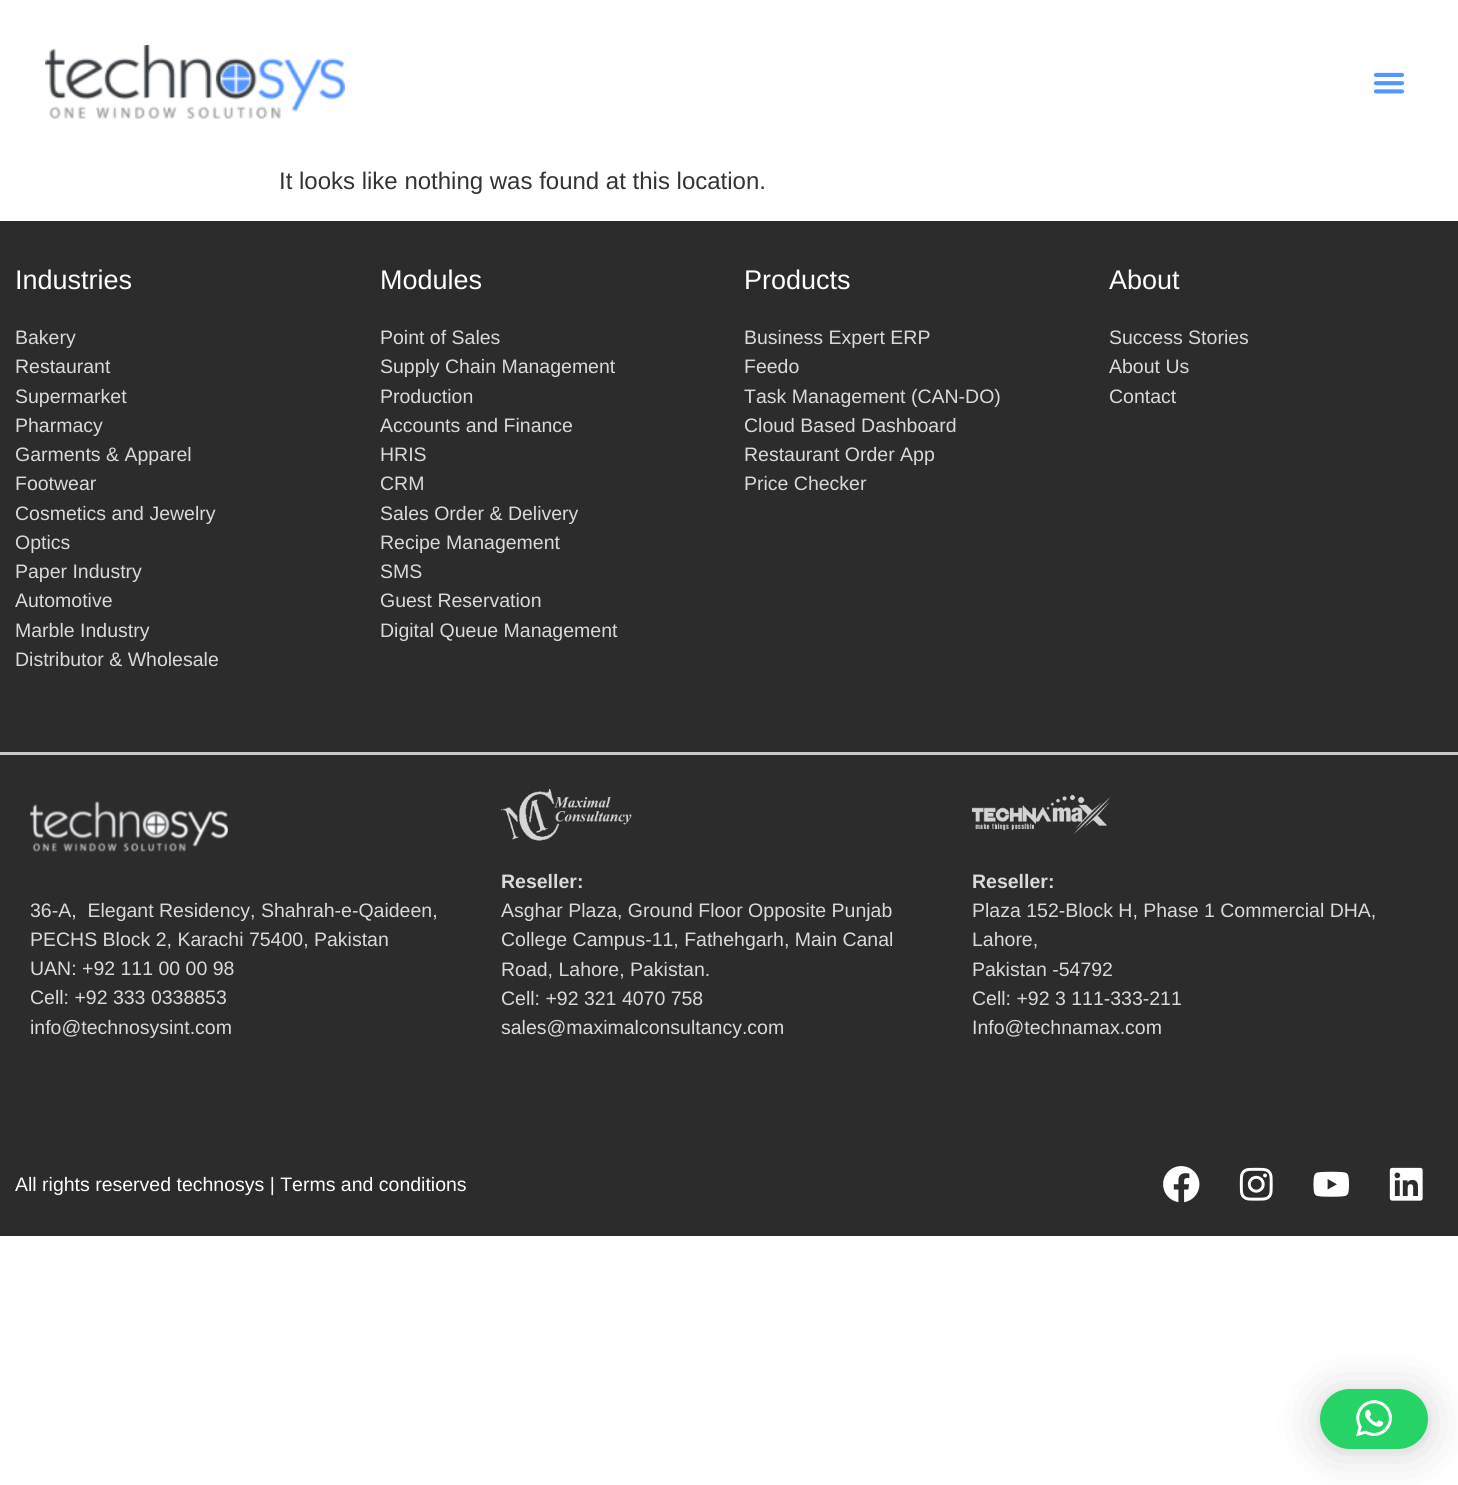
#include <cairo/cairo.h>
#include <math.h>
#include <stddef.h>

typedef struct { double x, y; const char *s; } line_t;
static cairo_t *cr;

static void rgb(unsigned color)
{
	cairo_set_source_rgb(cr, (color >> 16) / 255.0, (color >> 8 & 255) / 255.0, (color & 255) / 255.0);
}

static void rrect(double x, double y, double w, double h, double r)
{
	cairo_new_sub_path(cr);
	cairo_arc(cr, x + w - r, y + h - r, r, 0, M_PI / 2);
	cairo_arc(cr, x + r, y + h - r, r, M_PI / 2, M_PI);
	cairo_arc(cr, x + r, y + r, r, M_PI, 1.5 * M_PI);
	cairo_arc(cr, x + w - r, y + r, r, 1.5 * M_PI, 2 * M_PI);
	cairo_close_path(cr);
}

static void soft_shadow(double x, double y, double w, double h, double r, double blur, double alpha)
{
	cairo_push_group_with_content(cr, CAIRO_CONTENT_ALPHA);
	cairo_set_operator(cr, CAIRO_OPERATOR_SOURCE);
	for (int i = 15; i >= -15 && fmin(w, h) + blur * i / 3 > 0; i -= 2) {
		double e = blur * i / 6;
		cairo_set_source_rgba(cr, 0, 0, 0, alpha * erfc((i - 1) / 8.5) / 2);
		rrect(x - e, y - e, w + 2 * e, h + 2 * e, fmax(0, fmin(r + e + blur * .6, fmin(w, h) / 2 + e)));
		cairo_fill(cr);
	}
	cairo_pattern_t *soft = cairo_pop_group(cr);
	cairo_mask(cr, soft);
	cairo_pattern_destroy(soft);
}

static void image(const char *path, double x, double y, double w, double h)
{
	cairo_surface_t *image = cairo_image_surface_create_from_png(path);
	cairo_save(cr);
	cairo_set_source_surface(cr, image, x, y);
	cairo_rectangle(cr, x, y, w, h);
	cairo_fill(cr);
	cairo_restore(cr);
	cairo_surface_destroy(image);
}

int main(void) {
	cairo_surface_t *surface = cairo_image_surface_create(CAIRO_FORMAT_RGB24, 1458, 1485);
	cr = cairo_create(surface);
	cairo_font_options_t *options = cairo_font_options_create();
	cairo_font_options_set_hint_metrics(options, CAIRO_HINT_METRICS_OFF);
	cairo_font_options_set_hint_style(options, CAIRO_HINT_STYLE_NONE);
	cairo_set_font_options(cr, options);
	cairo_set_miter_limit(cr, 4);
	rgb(0xffffff);
	cairo_paint(cr);
	image("img/1.png", 45, 45, 300, 74);
	image("img/2.png", 1373, 72, 32, 22);
	rgb(0x2c2c2c);
	cairo_rectangle(cr, 0, 221, 1458, 1015);
	cairo_fill(cr);
	rgb(0xcacaca);
	cairo_rectangle(cr, 0, 752, 1458, 3);
	cairo_fill(cr);
	image("img/3.png", 30, 801, 198, 51);
	image("img/4.png", 501, 789, 131, 52);
	image("img/5.png", 972, 795, 138, 39);
	image("img/6.png", 1163, 1166, 37, 37);
	image("img/7.png", 1239, 1167, 34, 34);
	image("img/8.png", 1313, 1171, 36, 26);
	image("img/9.png", 1389, 1167, 34, 34);
	rgb(0x000000);
	soft_shadow(1320, 1392, 108, 60, 30, 24, 0.16);
	soft_shadow(1320, 1391, 108, 60, 30, 4.5, 0.06);
	rgb(0x25d366);
	rrect(1320, 1389, 108, 60, 30);
	cairo_fill(cr);
	image("img/10.png", 1356, 1400, 36, 37);
	cairo_select_font_face(cr, "Liberation Sans", CAIRO_FONT_SLANT_NORMAL, CAIRO_FONT_WEIGHT_NORMAL);
	cairo_set_font_size(cr, 24);
	rgb(0x333333);
	cairo_move_to(cr, 279, 189);
	cairo_show_text(cr, "It looks like nothing was found at this location.");
	cairo_set_font_size(cr, 27);
	rgb(0xffffff);
	cairo_move_to(cr, 15, 289);
	cairo_show_text(cr, "Industries");
	cairo_set_font_size(cr, 19.5);
	rgb(0xdadada);
	{
		static const line_t items[] = {
			{15, 344, "Bakery"},
			{15, 373, "Restaurant"},
			{15, 403, "Supermarket"},
			{15, 432, "Pharmacy"},
			{15, 461, "Garments & Apparel"},
			{15, 490, "Footwear"},
			{15, 520, "Cosmetics and Jewelry"},
			{15, 549, "Optics"},
			{15, 578, "Paper Industry"},
			{15, 607, "Automotive"},
			{15, 637, "Marble Industry"},
			{15, 666, "Distributor & Wholesale"},
		};
		for (size_t i = 0; i < sizeof items / sizeof *items; i++) {
			cairo_move_to(cr, items[i].x, items[i].y);
			cairo_show_text(cr, items[i].s);
		}
	}
	cairo_set_font_size(cr, 27);
	rgb(0xffffff);
	cairo_move_to(cr, 380, 289);
	cairo_show_text(cr, "Modules");
	cairo_set_font_size(cr, 19.5);
	rgb(0xdadada);
	{
		static const line_t items[] = {
			{380, 344, "Point of Sales"},
			{380, 373, "Supply Chain Management"},
			{380, 403, "Production"},
			{380, 432, "Accounts and Finance"},
			{380, 461, "HRIS"},
			{380, 490, "CRM"},
			{380, 520, "Sales Order & Delivery"},
			{380, 549, "Recipe Management"},
			{380, 578, "SMS"},
			{380, 607, "Guest Reservation"},
			{380, 637, "Digital Queue Management"},
		};
		for (size_t i = 0; i < sizeof items / sizeof *items; i++) {
			cairo_move_to(cr, items[i].x, items[i].y);
			cairo_show_text(cr, items[i].s);
		}
	}
	cairo_set_font_size(cr, 27);
	rgb(0xffffff);
	cairo_move_to(cr, 744, 289);
	cairo_show_text(cr, "Products");
	cairo_set_font_size(cr, 19.5);
	rgb(0xdadada);
	{
		static const line_t items[] = {
			{744, 344, "Business Expert ERP"},
			{744, 373, "Feedo"},
			{744, 403, "Task Management (CAN-DO)"},
			{744, 432, "Cloud Based Dashboard"},
			{744, 461, "Restaurant Order App"},
			{744, 490, "Price Checker"},
		};
		for (size_t i = 0; i < sizeof items / sizeof *items; i++) {
			cairo_move_to(cr, items[i].x, items[i].y);
			cairo_show_text(cr, items[i].s);
		}
	}
	cairo_set_font_size(cr, 27);
	rgb(0xffffff);
	cairo_move_to(cr, 1109, 289);
	cairo_show_text(cr, "About");
	cairo_set_font_size(cr, 19.5);
	rgb(0xdadada);
	{
		static const line_t items[] = {
			{1109, 344, "Success Stories"},
			{1109, 373, "About Us"},
			{1109, 403, "Contact"},
			{30, 917, "36-A,  Elegant Residency, Shahrah-e-Qaideen,"},
			{30, 946, "PECHS Block 2, Karachi 75400, Pakistan"},
			{30, 975, "UAN: +92 111 00 00 98"},
			{30, 1004, "Cell: +92 333 0338853"},
			{30, 1034, "info@technosysint.com"},
		};
		for (size_t i = 0; i < sizeof items / sizeof *items; i++) {
			cairo_move_to(cr, items[i].x, items[i].y);
			cairo_show_text(cr, items[i].s);
		}
	}
	cairo_select_font_face(cr, "Liberation Sans", CAIRO_FONT_SLANT_NORMAL, CAIRO_FONT_WEIGHT_BOLD);
	cairo_move_to(cr, 501, 888);
	cairo_show_text(cr, "Reseller:");
	cairo_select_font_face(cr, "Liberation Sans", CAIRO_FONT_SLANT_NORMAL, CAIRO_FONT_WEIGHT_NORMAL);
	{
		static const line_t items[] = {
			{501, 917, "Asghar Plaza, Ground Floor Opposite Punjab"},
			{501, 946, "College Campus-11, Fathehgarh, Main Canal"},
			{501, 976, "Road, Lahore, Pakistan."},
			{501, 1005, "Cell: +92 321 4070 758"},
			{501, 1034, "sales@maximalconsultancy.com"},
		};
		for (size_t i = 0; i < sizeof items / sizeof *items; i++) {
			cairo_move_to(cr, items[i].x, items[i].y);
			cairo_show_text(cr, items[i].s);
		}
	}
	cairo_select_font_face(cr, "Liberation Sans", CAIRO_FONT_SLANT_NORMAL, CAIRO_FONT_WEIGHT_BOLD);
	cairo_move_to(cr, 972, 888);
	cairo_show_text(cr, "Reseller:");
	cairo_select_font_face(cr, "Liberation Sans", CAIRO_FONT_SLANT_NORMAL, CAIRO_FONT_WEIGHT_NORMAL);
	{
		static const line_t items[] = {
			{972, 917, "Plaza 152-Block H, Phase 1 Commercial DHA,"},
			{972, 946, "Lahore,"},
			{972, 976, "Pakistan -54792"},
			{972, 1005, "Cell: +92 3 111-333-211"},
			{972, 1034, "Info@technamax.com"},
		};
		for (size_t i = 0; i < sizeof items / sizeof *items; i++) {
			cairo_move_to(cr, items[i].x, items[i].y);
			cairo_show_text(cr, items[i].s);
		}
	}
	rgb(0xffffff);
	cairo_move_to(cr, 15, 1191);
	cairo_show_text(cr, "All rights reserved technosys | Terms and conditions");
	cairo_surface_write_to_png(surface, "page.png");
	cairo_font_options_destroy(options);
	cairo_destroy(cr);
	cairo_surface_destroy(surface);
	return 0;
}
